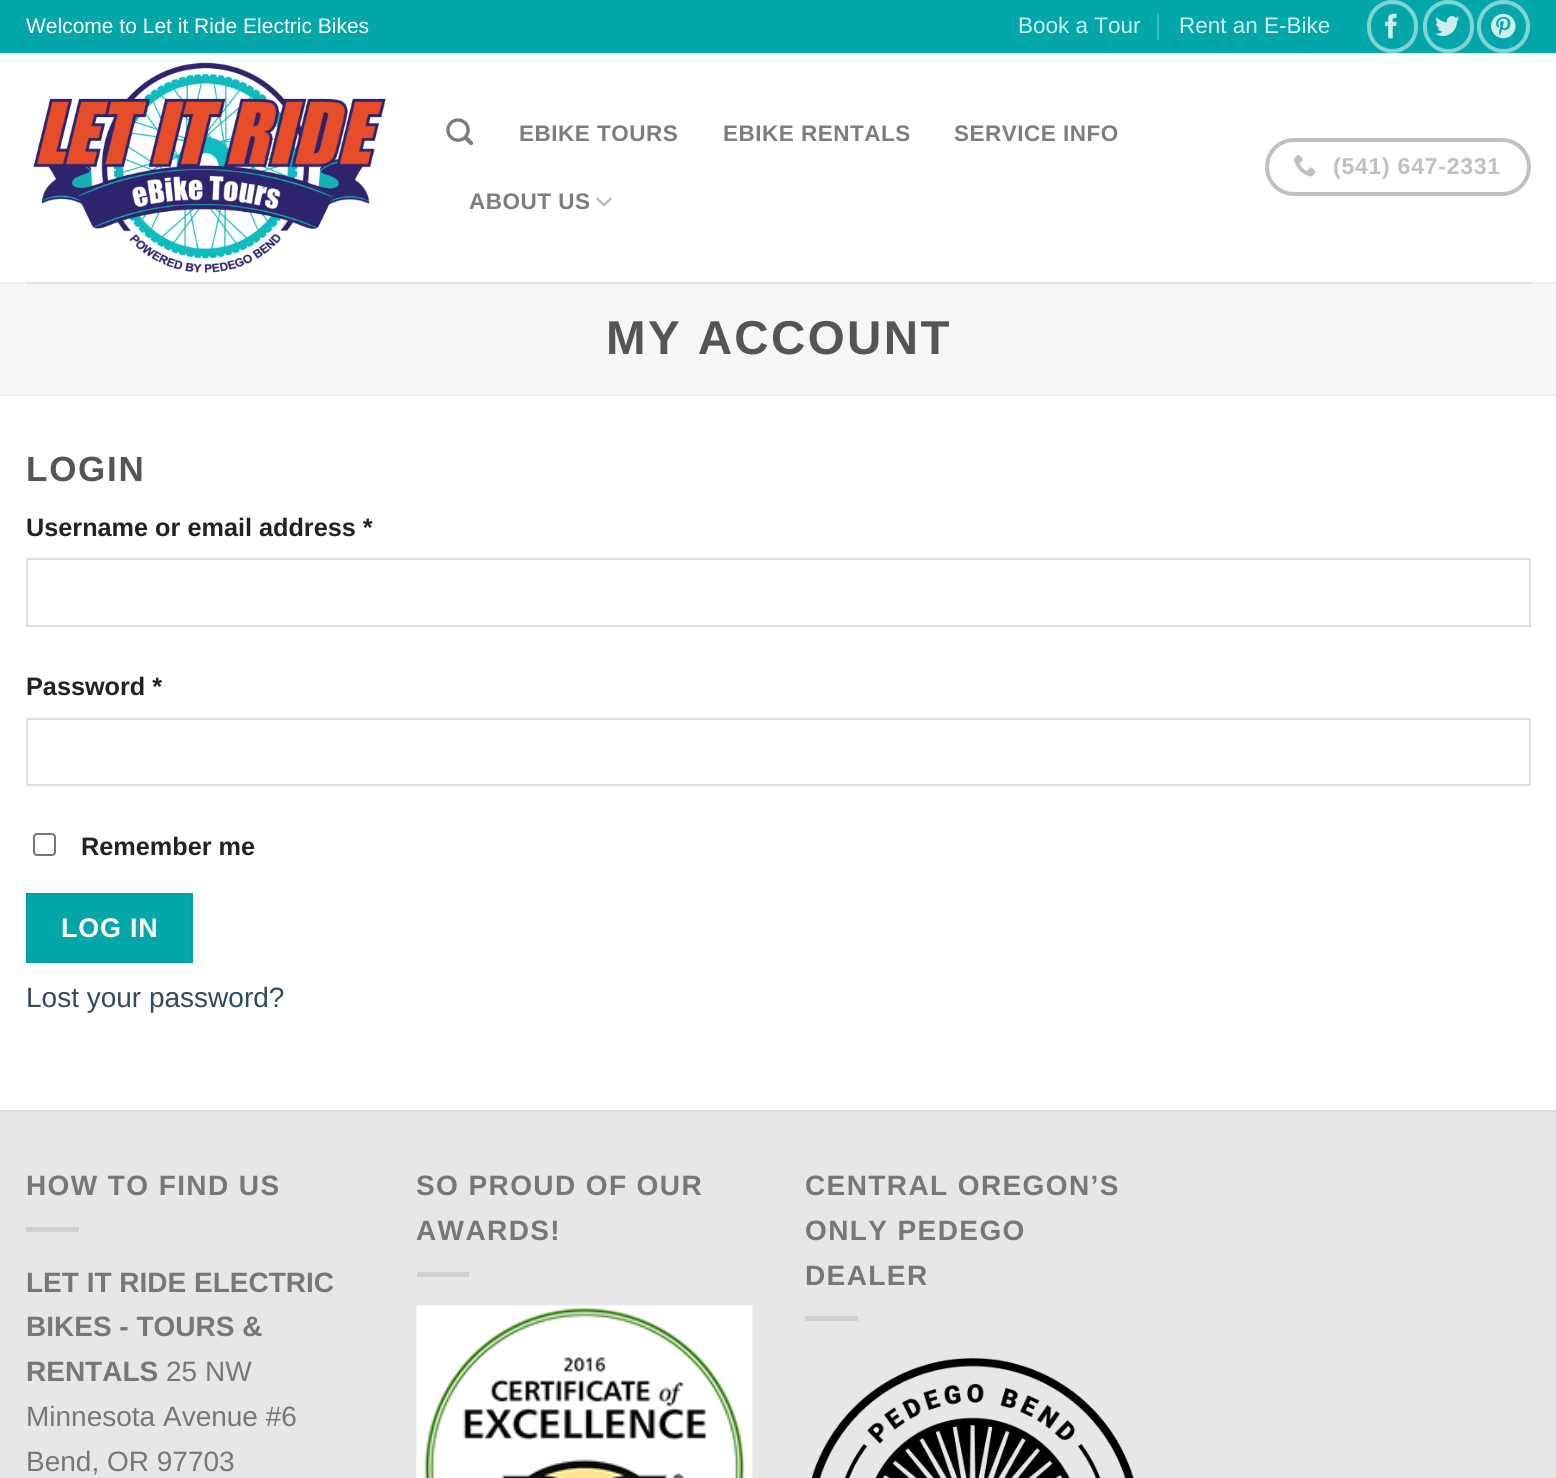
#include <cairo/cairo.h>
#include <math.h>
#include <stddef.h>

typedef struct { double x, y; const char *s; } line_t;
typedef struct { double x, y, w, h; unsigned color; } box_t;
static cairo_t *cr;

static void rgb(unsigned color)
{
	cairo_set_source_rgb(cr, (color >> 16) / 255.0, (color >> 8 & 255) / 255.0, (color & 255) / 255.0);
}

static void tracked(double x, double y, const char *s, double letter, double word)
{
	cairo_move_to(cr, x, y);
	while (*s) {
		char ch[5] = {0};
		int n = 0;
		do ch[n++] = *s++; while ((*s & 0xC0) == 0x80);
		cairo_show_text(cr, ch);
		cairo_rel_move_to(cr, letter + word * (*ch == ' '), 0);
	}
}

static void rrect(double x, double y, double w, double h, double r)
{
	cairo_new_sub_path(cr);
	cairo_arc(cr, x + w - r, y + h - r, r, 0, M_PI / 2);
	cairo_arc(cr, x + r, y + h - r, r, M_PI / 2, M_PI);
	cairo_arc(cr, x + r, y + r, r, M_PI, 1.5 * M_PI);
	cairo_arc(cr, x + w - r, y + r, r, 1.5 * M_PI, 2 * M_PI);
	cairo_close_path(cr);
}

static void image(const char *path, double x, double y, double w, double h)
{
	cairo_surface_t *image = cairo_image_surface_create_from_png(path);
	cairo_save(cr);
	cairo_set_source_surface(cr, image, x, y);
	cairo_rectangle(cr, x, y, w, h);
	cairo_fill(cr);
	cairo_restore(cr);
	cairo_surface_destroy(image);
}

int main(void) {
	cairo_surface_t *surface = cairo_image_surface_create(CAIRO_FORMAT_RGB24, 1556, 1478);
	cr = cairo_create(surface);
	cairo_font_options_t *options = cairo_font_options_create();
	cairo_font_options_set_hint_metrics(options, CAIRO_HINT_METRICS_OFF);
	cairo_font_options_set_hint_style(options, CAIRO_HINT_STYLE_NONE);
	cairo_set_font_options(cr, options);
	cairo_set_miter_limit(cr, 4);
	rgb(0xffffff);
	cairo_paint(cr);
	rgb(0x03a7a9);
	cairo_rectangle(cr, 0, 0, 1556, 53);
	cairo_fill(cr);
	rgb(0x35b9ba);
	cairo_rectangle(cr, 1157, 14, 2, 26);
	cairo_fill(cr);
	rrect(1369, 2, 47, 49, 23.5);
	rgb(0x81d3d4);
	cairo_set_line_width(cr, 4);
	cairo_stroke(cr);
	image("img/1.png", 1385, 13, 12, 26);
	rrect(1425, 2, 47, 49, 23.5);
	cairo_stroke(cr);
	image("img/2.png", 1435, 16, 25, 20);
	cairo_arc(cr, 1503.5, 26.5, 24.5, 0, 2 * M_PI);
	cairo_stroke(cr);
	image("img/3.png", 1491, 13, 25, 26);
	image("img/4.png", 33, 62, 353, 211);
	image("img/5.png", 446, 118, 28, 28);
	image("img/6.png", 596, 197, 16, 10);
	rrect(1267, 140, 262, 54, 27);
	rgb(0xc0c0c0);
	cairo_stroke(cr);
	image("img/7.png", 1294, 154, 22, 23);
	{
		static const box_t items[] = {
			{0, 282, 1556, 2, 0xececec},
			{26, 282, 1505, 2, 0xe0e0e0},
			{0, 284, 1556, 110, 0xf7f7f7},
			{0, 394, 1556, 2, 0xececec},
		};
		for (size_t i = 0; i < sizeof items / sizeof *items; i++) {
			rgb(items[i].color);
			cairo_rectangle(cr, items[i].x, items[i].y, items[i].w, items[i].h);
			cairo_fill(cr);
		}
	}
	cairo_rectangle(cr, 27, 559, 1503, 67);
	rgb(0xdddddd);
	cairo_set_line_width(cr, 2);
	cairo_stroke(cr);
	cairo_rectangle(cr, 27, 719, 1503, 66);
	cairo_stroke(cr);
	rrect(34, 834, 21, 21, 3);
	rgb(0x767676);
	cairo_stroke(cr);
	rgb(0x03a7a9);
	cairo_rectangle(cr, 27, 894, 165, 68);
	cairo_fill_preserve(cr);
	rgb(0x039fa1);
	cairo_stroke(cr);
	{
		static const box_t items[] = {
			{0, 1112, 1556, 366, 0xe7e7e7},
			{0, 1110, 1556, 2, 0xdbdbdb},
			{26, 1227, 53, 5, 0xd0d0d0},
			{417, 1272, 52, 5, 0xd0d0d0},
		};
		for (size_t i = 0; i < sizeof items / sizeof *items; i++) {
			rgb(items[i].color);
			cairo_rectangle(cr, items[i].x, items[i].y, items[i].w, items[i].h);
			cairo_fill(cr);
		}
	}
	image("img/8.png", 416, 1305, 337, 173);
	cairo_rectangle(cr, 805, 1316, 53, 5);
	cairo_fill(cr);
	image("img/9.png", 811, 1358, 323, 120);
	cairo_select_font_face(cr, "Liberation Sans", CAIRO_FONT_SLANT_NORMAL, CAIRO_FONT_WEIGHT_NORMAL);
	cairo_set_font_size(cr, 21);
	rgb(0xffffff);
	cairo_move_to(cr, 26, 33);
	cairo_show_text(cr, "Welcome to Let it Ride Electric Bikes");
	cairo_set_font_size(cr, 22.5);
	rgb(0xcdedee);
	cairo_move_to(cr, 1018, 33);
	cairo_show_text(cr, "Book a Tour");
	cairo_move_to(cr, 1179, 33);
	cairo_show_text(cr, "Rent an E-Bike");
	cairo_select_font_face(cr, "Liberation Sans", CAIRO_FONT_SLANT_NORMAL, CAIRO_FONT_WEIGHT_BOLD);
	rgb(0x7d7d7d);
	{
		static const line_t items[] = {
			{519, 141, "EBIKE TOURS"},
			{723, 141, "EBIKE RENTALS"},
			{954, 141, "SERVICE INFO"},
			{469, 209, "ABOUT US"},
		};
		for (size_t i = 0; i < sizeof items / sizeof *items; i++) {
			tracked(items[i].x, items[i].y, items[i].s, 0.5, 0);
		}
	}
	cairo_set_font_size(cr, 23);
	rgb(0xc0c0c0);
	tracked(1333, 174, "(541) 647-2331", 0.75, 0);
	cairo_set_font_size(cr, 47.5);
	rgb(0x555555);
	tracked(606, 354, "MY ACCOUNT", 2.4, 0);
	cairo_set_font_size(cr, 35);
	tracked(26, 481, "LOGIN", 1.75, 0);
	cairo_set_font_size(cr, 25.25);
	rgb(0x222222);
	{
		static const line_t items[] = {
			{26, 536, "Username or email address *"},
			{26, 695, "Password *"},
			{81, 855, "Remember me"},
		};
		for (size_t i = 0; i < sizeof items / sizeof *items; i++) {
			cairo_move_to(cr, items[i].x, items[i].y);
			cairo_show_text(cr, items[i].s);
		}
	}
	cairo_set_font_size(cr, 27);
	rgb(0xffffff);
	tracked(61, 937, "LOG IN", 0.75, 0);
	cairo_select_font_face(cr, "Liberation Sans", CAIRO_FONT_SLANT_NORMAL, CAIRO_FONT_WEIGHT_NORMAL);
	cairo_set_font_size(cr, 28);
	rgb(0x334862);
	cairo_move_to(cr, 26, 1007);
	cairo_show_text(cr, "Lost your password?");
	cairo_select_font_face(cr, "Liberation Sans", CAIRO_FONT_SLANT_NORMAL, CAIRO_FONT_WEIGHT_BOLD);
	rgb(0x777777);
	tracked(26, 1195, "HOW TO FIND US", 1.4, 0);
	{
		static const line_t items[] = {
			{26, 1292, "LET IT RIDE ELECTRIC"},
			{26, 1336, "BIKES - TOURS &"},
			{26, 1381, "RENTALS"},
		};
		for (size_t i = 0; i < sizeof items / sizeof *items; i++) {
			cairo_move_to(cr, items[i].x, items[i].y);
			cairo_show_text(cr, items[i].s);
		}
	}
	cairo_select_font_face(cr, "Liberation Sans", CAIRO_FONT_SLANT_NORMAL, CAIRO_FONT_WEIGHT_NORMAL);
	{
		static const line_t items[] = {
			{166, 1381, "25 NW"},
			{26, 1426, "Minnesota Avenue #6"},
			{26, 1471, "Bend, OR 97703"},
		};
		for (size_t i = 0; i < sizeof items / sizeof *items; i++) {
			cairo_move_to(cr, items[i].x, items[i].y);
			cairo_show_text(cr, items[i].s);
		}
	}
	cairo_select_font_face(cr, "Liberation Sans", CAIRO_FONT_SLANT_NORMAL, CAIRO_FONT_WEIGHT_BOLD);
	{
		static const line_t items[] = {
			{416, 1195, "SO PROUD OF OUR"},
			{416, 1240, "AWARDS!"},
			{805, 1195, "CENTRAL OREGON’S"},
			{805, 1240, "ONLY PEDEGO"},
			{805, 1285, "DEALER"},
		};
		for (size_t i = 0; i < sizeof items / sizeof *items; i++) {
			tracked(items[i].x, items[i].y, items[i].s, 1.4, 0);
		}
	}
	cairo_surface_write_to_png(surface, "page.png");
	cairo_font_options_destroy(options);
	cairo_destroy(cr);
	cairo_surface_destroy(surface);
	return 0;
}
